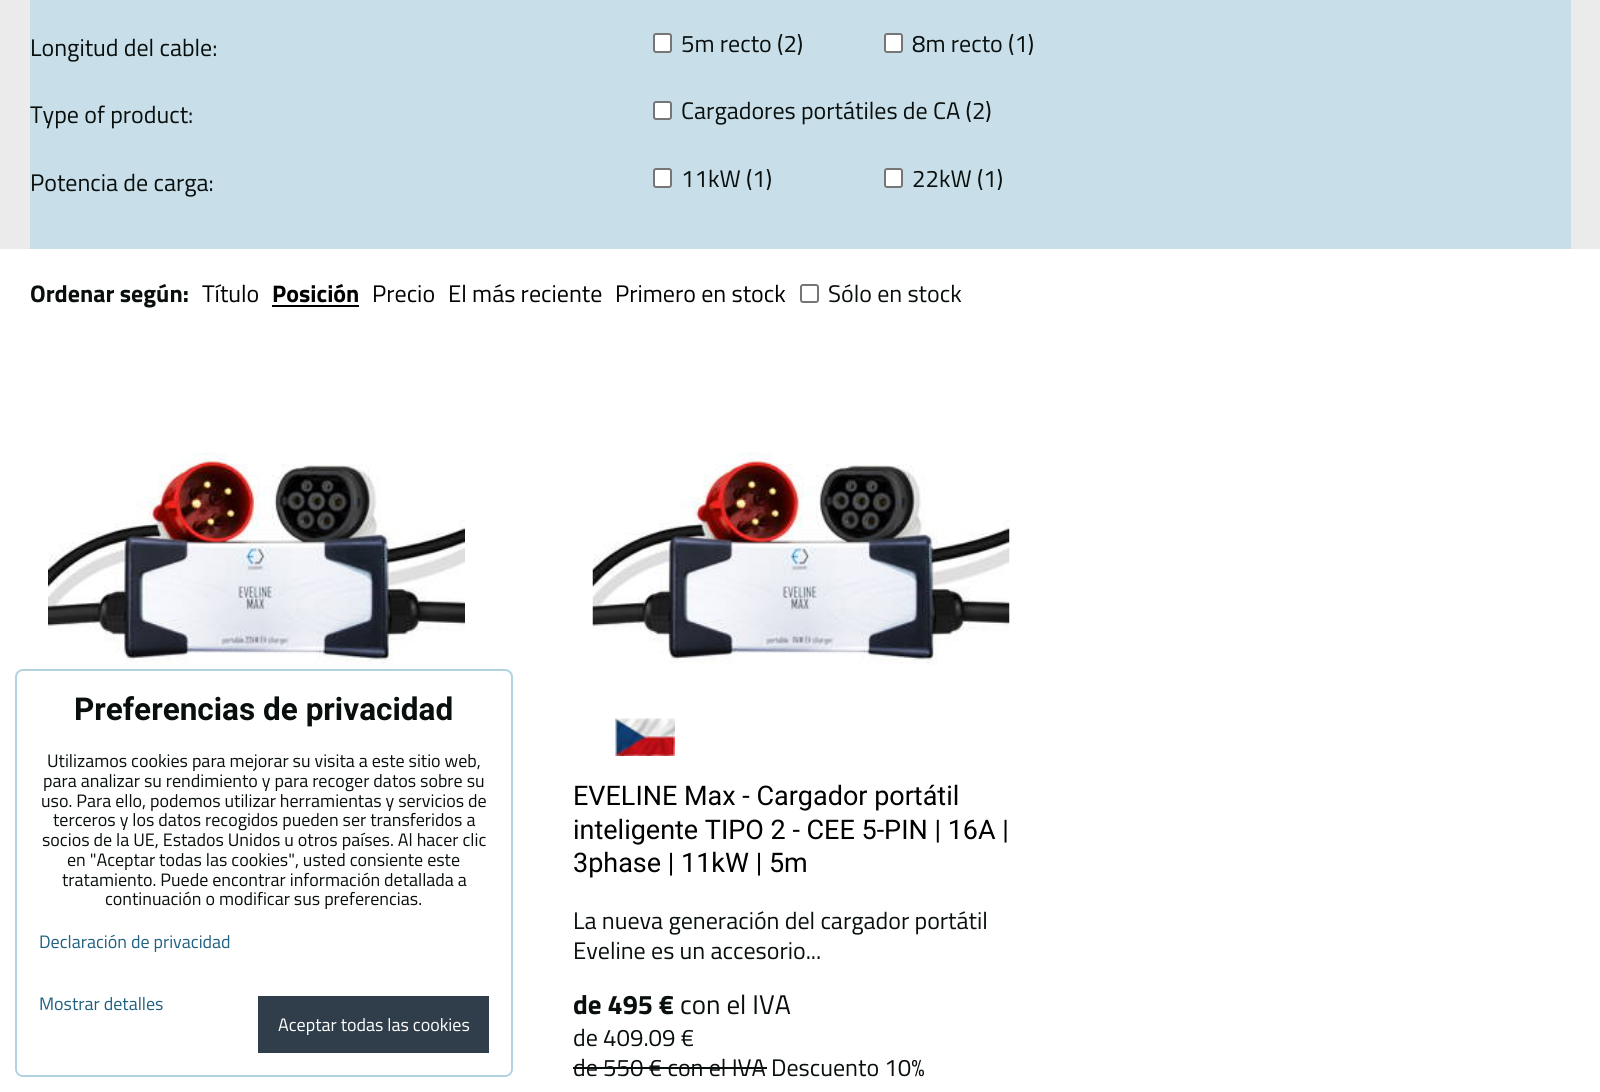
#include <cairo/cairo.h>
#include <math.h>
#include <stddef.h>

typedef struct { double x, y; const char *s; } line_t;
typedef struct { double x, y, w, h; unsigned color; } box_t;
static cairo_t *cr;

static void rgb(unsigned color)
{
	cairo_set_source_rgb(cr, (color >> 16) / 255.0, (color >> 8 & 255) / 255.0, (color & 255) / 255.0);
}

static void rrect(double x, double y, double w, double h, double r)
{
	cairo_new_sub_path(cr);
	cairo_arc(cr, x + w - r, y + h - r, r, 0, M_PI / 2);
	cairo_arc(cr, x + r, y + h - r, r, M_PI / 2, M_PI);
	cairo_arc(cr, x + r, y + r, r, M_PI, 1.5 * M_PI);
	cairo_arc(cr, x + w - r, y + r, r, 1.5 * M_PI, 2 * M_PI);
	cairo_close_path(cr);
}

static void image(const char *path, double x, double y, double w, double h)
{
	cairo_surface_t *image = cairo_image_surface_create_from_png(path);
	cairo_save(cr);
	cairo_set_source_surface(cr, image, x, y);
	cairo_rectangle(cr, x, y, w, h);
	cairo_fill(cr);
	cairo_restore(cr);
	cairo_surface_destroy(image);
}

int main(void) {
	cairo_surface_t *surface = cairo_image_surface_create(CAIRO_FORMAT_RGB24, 1600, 1092);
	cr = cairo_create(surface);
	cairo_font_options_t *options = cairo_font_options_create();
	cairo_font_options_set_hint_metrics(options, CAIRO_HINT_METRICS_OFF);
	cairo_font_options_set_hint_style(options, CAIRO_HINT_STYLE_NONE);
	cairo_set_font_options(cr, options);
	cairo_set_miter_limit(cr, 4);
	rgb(0xffffff);
	cairo_paint(cr);
	{
		static const box_t items[] = {
			{0, 0, 30, 249, 0xebebeb},
			{1571, 0, 29, 249, 0xebebeb},
			{30, 0, 1541, 249, 0xc8dee9},
		};
		for (size_t i = 0; i < sizeof items / sizeof *items; i++) {
			rgb(items[i].color);
			cairo_rectangle(cr, items[i].x, items[i].y, items[i].w, items[i].h);
			cairo_fill(cr);
		}
	}
	rgb(0xffffff);
	rrect(654, 34, 17, 18, 2);
	cairo_fill_preserve(cr);
	rgb(0x767676);
	cairo_stroke(cr);
	rgb(0xffffff);
	rrect(885, 34, 17, 18, 2);
	cairo_fill_preserve(cr);
	rgb(0x767676);
	cairo_stroke(cr);
	rgb(0xffffff);
	rrect(654, 102, 17, 17, 2);
	cairo_fill_preserve(cr);
	rgb(0x767676);
	cairo_stroke(cr);
	rgb(0xffffff);
	rrect(654, 169, 17, 18, 2);
	cairo_fill_preserve(cr);
	rgb(0x767676);
	cairo_stroke(cr);
	rgb(0xffffff);
	rrect(885, 169, 17, 18, 2);
	cairo_fill_preserve(cr);
	rgb(0x767676);
	cairo_stroke(cr);
	rgb(0x000000);
	cairo_rectangle(cr, 272, 305, 87, 2);
	cairo_fill(cr);
	rrect(801, 285, 17, 17, 2);
	rgb(0x767676);
	cairo_stroke(cr);
	image("img/1.png", 48, 452, 417, 213);
	image("img/2.png", 592, 452, 418, 213);
	image("img/3.png", 615, 718, 60, 38);
	rgb(0x080f0d);
	cairo_rectangle(cr, 573, 1067, 194, 2);
	cairo_fill(cr);
	rrect(16, 670, 496, 406, 7);
	rgb(0xb3d2e0);
	cairo_stroke(cr);
	rgb(0x2f3e4a);
	cairo_rectangle(cr, 258, 996, 231, 57);
	cairo_fill(cr);
	cairo_select_font_face(cr, "Titillium Web", CAIRO_FONT_SLANT_NORMAL, CAIRO_FONT_WEIGHT_NORMAL);
	cairo_set_font_size(cr, 24);
	rgb(0x080f0d);
	{
		static const line_t items[] = {
			{30, 56, "Longitud del cable:"},
			{681, 52, "5m recto (2)"},
			{912, 52, "8m recto (1)"},
			{30, 123, "Type of product:"},
			{681, 119, "Cargadores portátiles de CA (2)"},
			{30, 191, "Potencia de carga:"},
			{681, 187, "11kW (1)"},
			{912, 187, "22kW (1)"},
		};
		for (size_t i = 0; i < sizeof items / sizeof *items; i++) {
			cairo_move_to(cr, items[i].x, items[i].y);
			cairo_show_text(cr, items[i].s);
		}
	}
	cairo_select_font_face(cr, "Titillium Web", CAIRO_FONT_SLANT_NORMAL, CAIRO_FONT_WEIGHT_BOLD);
	cairo_move_to(cr, 30, 302);
	cairo_show_text(cr, "Ordenar según:");
	cairo_select_font_face(cr, "Titillium Web", CAIRO_FONT_SLANT_NORMAL, CAIRO_FONT_WEIGHT_NORMAL);
	rgb(0x000000);
	cairo_move_to(cr, 202, 302);
	cairo_show_text(cr, "Título");
	cairo_select_font_face(cr, "Titillium Web", CAIRO_FONT_SLANT_NORMAL, CAIRO_FONT_WEIGHT_BOLD);
	cairo_move_to(cr, 272, 302);
	cairo_show_text(cr, "Posición");
	cairo_select_font_face(cr, "Titillium Web", CAIRO_FONT_SLANT_NORMAL, CAIRO_FONT_WEIGHT_NORMAL);
	{
		static const line_t items[] = {
			{372, 302, "Precio"},
			{448, 302, "El más reciente"},
			{615, 302, "Primero en stock"},
		};
		for (size_t i = 0; i < sizeof items / sizeof *items; i++) {
			cairo_move_to(cr, items[i].x, items[i].y);
			cairo_show_text(cr, items[i].s);
		}
	}
	rgb(0x080f0d);
	cairo_move_to(cr, 828, 302);
	cairo_show_text(cr, "Sólo en stock");
	cairo_select_font_face(cr, "Roboto", CAIRO_FONT_SLANT_NORMAL, CAIRO_FONT_WEIGHT_NORMAL);
	cairo_set_font_size(cr, 27);
	rgb(0x000000);
	{
		static const line_t items[] = {
			{573, 805, "EVELINE Max - Cargador portátil"},
			{573, 839, "inteligente TIPO 2 - CEE 5-PIN | 16A |"},
			{573, 872, "3phase | 11kW | 5m"},
		};
		for (size_t i = 0; i < sizeof items / sizeof *items; i++) {
			cairo_move_to(cr, items[i].x, items[i].y);
			cairo_show_text(cr, items[i].s);
		}
	}
	cairo_select_font_face(cr, "Titillium Web", CAIRO_FONT_SLANT_NORMAL, CAIRO_FONT_WEIGHT_NORMAL);
	cairo_set_font_size(cr, 24);
	rgb(0x080f0d);
	cairo_move_to(cr, 573, 929);
	cairo_show_text(cr, "La nueva generación del cargador portátil");
	cairo_move_to(cr, 573, 959);
	cairo_show_text(cr, "Eveline es un accesorio...");
	cairo_select_font_face(cr, "Titillium Web", CAIRO_FONT_SLANT_NORMAL, CAIRO_FONT_WEIGHT_BOLD);
	cairo_set_font_size(cr, 27);
	cairo_move_to(cr, 573, 1014);
	cairo_show_text(cr, "de 495 €");
	cairo_select_font_face(cr, "Titillium Web", CAIRO_FONT_SLANT_NORMAL, CAIRO_FONT_WEIGHT_NORMAL);
	cairo_move_to(cr, 680, 1014);
	cairo_show_text(cr, "con el IVA");
	cairo_set_font_size(cr, 24);
	{
		static const line_t items[] = {
			{573, 1046, "de 409.09 €"},
			{573, 1076, "de 550 € con el IVA"},
			{771, 1076, "Descuento 10%"},
		};
		for (size_t i = 0; i < sizeof items / sizeof *items; i++) {
			cairo_move_to(cr, items[i].x, items[i].y);
			cairo_show_text(cr, items[i].s);
		}
	}
	cairo_select_font_face(cr, "Roboto", CAIRO_FONT_SLANT_NORMAL, CAIRO_FONT_WEIGHT_BOLD);
	cairo_set_font_size(cr, 31.5);
	cairo_move_to(cr, 74, 720);
	cairo_show_text(cr, "Preferencias de privacidad");
	cairo_select_font_face(cr, "Titillium Web", CAIRO_FONT_SLANT_NORMAL, CAIRO_FONT_WEIGHT_NORMAL);
	cairo_set_font_size(cr, 18);
	{
		static const line_t items[] = {
			{47, 767, "Utilizamos cookies para mejorar su visita a este sitio web,"},
			{43, 787, "para analizar su rendimiento y para recoger datos sobre su"},
			{41, 807, "uso. Para ello, podemos utilizar herramientas y servicios de"},
			{53, 826, "terceros y los datos recogidos pueden ser transferidos a"},
			{42, 846, "socios de la UE, Estados Unidos u otros países. Al hacer clic"},
			{67, 866, "en \"Aceptar todas las cookies\", usted consiente este"},
			{62, 886, "tratamiento. Puede encontrar información detallada a"},
			{105, 905, "continuación o modificar sus preferencias."},
		};
		for (size_t i = 0; i < sizeof items / sizeof *items; i++) {
			cairo_move_to(cr, items[i].x, items[i].y);
			cairo_show_text(cr, items[i].s);
		}
	}
	rgb(0x206080);
	cairo_move_to(cr, 39, 948);
	cairo_show_text(cr, "Declaración de privacidad");
	cairo_move_to(cr, 39, 1010);
	cairo_show_text(cr, "Mostrar detalles");
	rgb(0xffffff);
	cairo_move_to(cr, 278, 1031);
	cairo_show_text(cr, "Aceptar todas las cookies");
	cairo_surface_write_to_png(surface, "page.png");
	cairo_font_options_destroy(options);
	cairo_destroy(cr);
	cairo_surface_destroy(surface);
	return 0;
}
